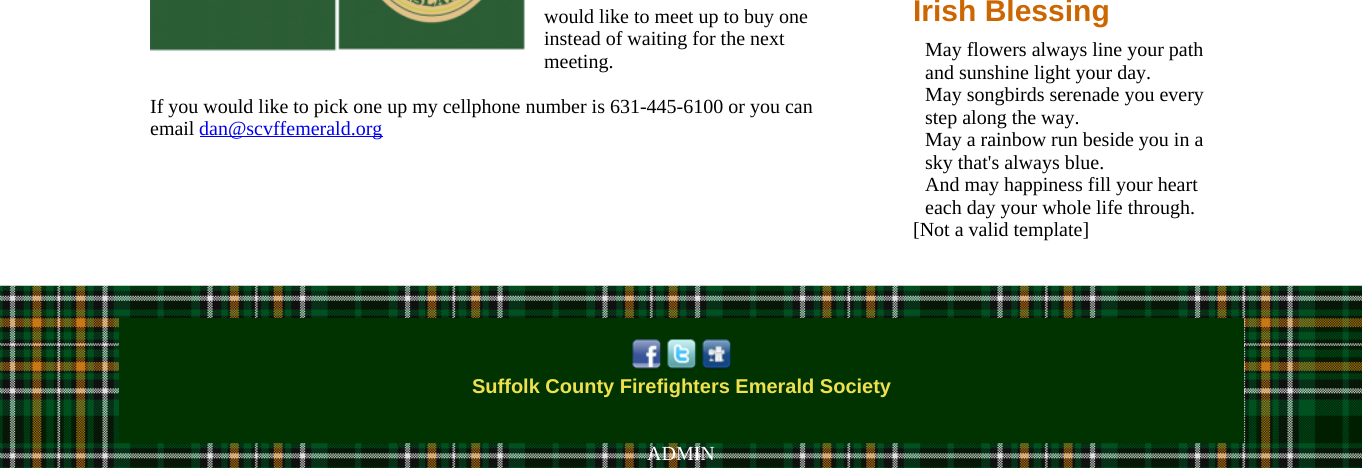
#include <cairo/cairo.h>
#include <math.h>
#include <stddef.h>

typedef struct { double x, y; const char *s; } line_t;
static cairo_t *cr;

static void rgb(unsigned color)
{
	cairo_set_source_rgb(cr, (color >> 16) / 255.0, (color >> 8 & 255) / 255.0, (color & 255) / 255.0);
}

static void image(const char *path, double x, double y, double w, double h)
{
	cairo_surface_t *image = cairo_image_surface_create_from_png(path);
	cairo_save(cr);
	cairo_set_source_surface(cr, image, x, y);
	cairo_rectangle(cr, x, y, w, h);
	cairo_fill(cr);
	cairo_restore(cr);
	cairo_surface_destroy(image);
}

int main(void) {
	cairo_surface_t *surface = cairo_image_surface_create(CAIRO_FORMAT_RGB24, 1362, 468);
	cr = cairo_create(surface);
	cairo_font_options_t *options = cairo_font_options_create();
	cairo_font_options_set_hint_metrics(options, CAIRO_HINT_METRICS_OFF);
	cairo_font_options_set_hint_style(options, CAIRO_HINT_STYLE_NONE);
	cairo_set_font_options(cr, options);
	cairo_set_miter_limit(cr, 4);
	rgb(0xffffff);
	cairo_paint(cr);
	image("img/1.png", 150, 0, 375, 51);
	rgb(0x0000ee);
	cairo_rectangle(cr, 200, 136, 183, 1);
	cairo_fill(cr);
	image("img/2.png", 0, 285, 1362, 183);
	rgb(0x003300);
	cairo_rectangle(cr, 119, 318, 1125, 125);
	cairo_fill(cr);
	image("img/3.png", 632, 339, 30, 31);
	image("img/4.png", 667, 339, 30, 31);
	image("img/5.png", 702, 339, 30, 31);
	cairo_select_font_face(cr, "Liberation Serif", CAIRO_FONT_SLANT_NORMAL, CAIRO_FONT_WEIGHT_NORMAL);
	cairo_set_font_size(cr, 20);
	rgb(0x000000);
	{
		static const line_t items[] = {
			{544, 23, "would like to meet up to buy one"},
			{544, 45, "instead of waiting for the next"},
			{544, 68, "meeting."},
			{150, 113, "If you would like to pick one up my cellphone number is 631-445-6100 or you can"},
			{150, 135, "email"},
		};
		for (size_t i = 0; i < sizeof items / sizeof *items; i++) {
			cairo_move_to(cr, items[i].x, items[i].y);
			cairo_show_text(cr, items[i].s);
		}
	}
	rgb(0x0000ee);
	cairo_move_to(cr, 199, 135);
	cairo_show_text(cr, "dan@scvffemerald.org");
	cairo_select_font_face(cr, "Liberation Sans", CAIRO_FONT_SLANT_NORMAL, CAIRO_FONT_WEIGHT_BOLD);
	cairo_set_font_size(cr, 30);
	rgb(0xcc6600);
	cairo_move_to(cr, 913, 21);
	cairo_show_text(cr, "Irish Blessing");
	cairo_select_font_face(cr, "Liberation Serif", CAIRO_FONT_SLANT_NORMAL, CAIRO_FONT_WEIGHT_NORMAL);
	cairo_set_font_size(cr, 20);
	rgb(0x000000);
	{
		static const line_t items[] = {
			{925, 56, "May flowers always line your path"},
			{925, 79, "and sunshine light your day."},
			{925, 101, "May songbirds serenade you every"},
			{925, 124, "step along the way."},
			{925, 146, "May a rainbow run beside you in a"},
			{925, 169, "sky that's always blue."},
			{925, 191, "And may happiness fill your heart"},
			{925, 214, "each day your whole life through."},
			{913, 236, "[Not a valid template]"},
		};
		for (size_t i = 0; i < sizeof items / sizeof *items; i++) {
			cairo_move_to(cr, items[i].x, items[i].y);
			cairo_show_text(cr, items[i].s);
		}
	}
	cairo_select_font_face(cr, "Liberation Sans", CAIRO_FONT_SLANT_NORMAL, CAIRO_FONT_WEIGHT_BOLD);
	rgb(0xeee04f);
	cairo_move_to(cr, 472, 393);
	cairo_show_text(cr, "Suffolk County Firefighters Emerald Society");
	cairo_select_font_face(cr, "Liberation Serif", CAIRO_FONT_SLANT_NORMAL, CAIRO_FONT_WEIGHT_NORMAL);
	rgb(0xffffff);
	cairo_move_to(cr, 647, 460);
	cairo_show_text(cr, "ADMIN");
	cairo_surface_write_to_png(surface, "page.png");
	cairo_font_options_destroy(options);
	cairo_destroy(cr);
	cairo_surface_destroy(surface);
	return 0;
}
